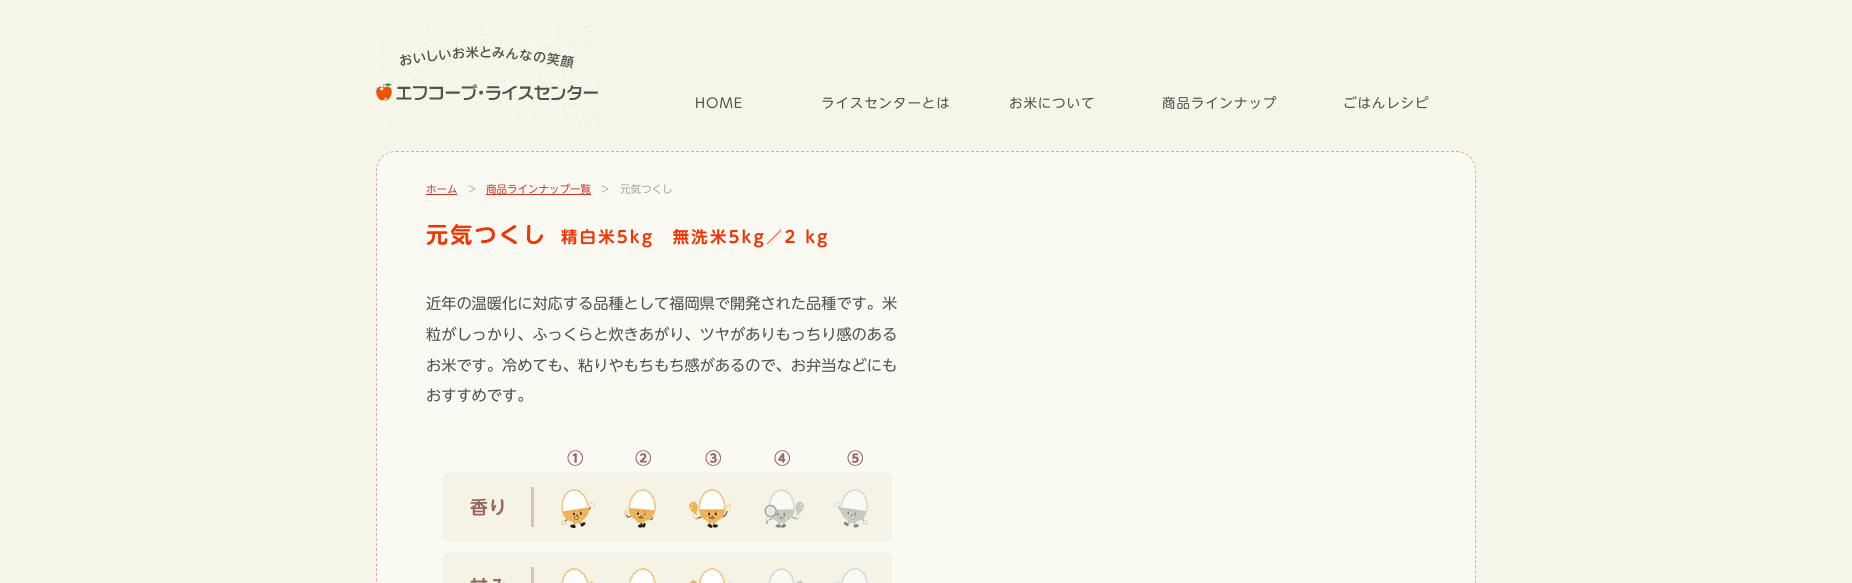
#include <cairo/cairo.h>
#include <math.h>
#include <stddef.h>

typedef struct { double x, y; const char *s; } line_t;
static cairo_t *cr;

static void rgb(unsigned color)
{
	cairo_set_source_rgb(cr, (color >> 16) / 255.0, (color >> 8 & 255) / 255.0, (color & 255) / 255.0);
}

static void tracked(double x, double y, const char *s, double letter, double word)
{
	cairo_move_to(cr, x, y);
	while (*s) {
		char ch[5] = {0};
		int n = 0;
		do ch[n++] = *s++; while ((*s & 0xC0) == 0x80);
		cairo_show_text(cr, ch);
		cairo_rel_move_to(cr, letter + word * (*ch == ' '), 0);
	}
}

static void rrect(double x, double y, double w, double h, double r)
{
	cairo_new_sub_path(cr);
	cairo_arc(cr, x + w - r, y + h - r, r, 0, M_PI / 2);
	cairo_arc(cr, x + r, y + h - r, r, M_PI / 2, M_PI);
	cairo_arc(cr, x + r, y + r, r, M_PI, 1.5 * M_PI);
	cairo_arc(cr, x + w - r, y + r, r, 1.5 * M_PI, 2 * M_PI);
	cairo_close_path(cr);
}

static void image(const char *path, double x, double y, double w, double h)
{
	cairo_surface_t *image = cairo_image_surface_create_from_png(path);
	cairo_save(cr);
	cairo_set_source_surface(cr, image, x, y);
	cairo_rectangle(cr, x, y, w, h);
	cairo_fill(cr);
	cairo_restore(cr);
	cairo_surface_destroy(image);
}

int main(void) {
	cairo_surface_t *surface = cairo_image_surface_create(CAIRO_FORMAT_RGB24, 1852, 583);
	cr = cairo_create(surface);
	cairo_font_options_t *options = cairo_font_options_create();
	cairo_font_options_set_hint_metrics(options, CAIRO_HINT_METRICS_OFF);
	cairo_font_options_set_hint_style(options, CAIRO_HINT_STYLE_NONE);
	cairo_set_font_options(cr, options);
	cairo_set_miter_limit(cr, 4);
	rgb(0xf5f5e9);
	cairo_paint(cr);
	image("img/1.png", 376, 26, 222, 100);
	rgb(0xfafaf3);
	rrect(376, 151, 1100, 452, 20);
	cairo_fill(cr);
	cairo_new_path(cr);
	cairo_move_to(cr, 396, 151.5);
	cairo_line_to(cr, 1456, 151.5);
	cairo_curve_to(cr, 1467, 151.5, 1475.5, 160, 1475.5, 171);
	cairo_line_to(cr, 1475.5, 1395);
	cairo_curve_to(cr, 1475.5, 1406, 1467, 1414.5, 1456, 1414.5);
	cairo_line_to(cr, 396, 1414.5);
	cairo_curve_to(cr, 385, 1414.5, 376.5, 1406, 376.5, 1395);
	cairo_line_to(cr, 376.5, 171);
	cairo_curve_to(cr, 376.5, 160, 385, 151.5, 396, 151.5);
	cairo_close_path(cr);
	rgb(0xdcaf9c);
	cairo_set_line_width(cr, 1);
	cairo_set_dash(cr, (double[]){3, 2}, 2, 0);
	cairo_stroke(cr);
	rgb(0xcd362d);
	cairo_rectangle(cr, 426, 194, 31, 1);
	cairo_fill(cr);
	cairo_rectangle(cr, 486, 194, 105, 1);
	cairo_fill(cr);
	image("img/2.png", 442, 450, 450, 133);
	cairo_select_font_face(cr, "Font", CAIRO_FONT_SLANT_NORMAL, CAIRO_FONT_WEIGHT_NORMAL);
	cairo_set_font_size(cr, 13.4);
	rgb(0x54514e);
	{
		static const line_t items[] = {
			{695, 108, "HOME"},
			{821, 108, "ライスセンターとは"},
			{1009, 108, "お米について"},
			{1162, 108, "商品ラインナップ"},
			{1343, 108, "ごはんレシピ"},
		};
		for (size_t i = 0; i < sizeof items / sizeof *items; i++) {
			tracked(items[i].x, items[i].y, items[i].s, 1, 0);
		}
	}
	cairo_set_font_size(cr, 10.5);
	rgb(0xcd362d);
	cairo_move_to(cr, 426, 193);
	cairo_show_text(cr, "ホーム");
	rgb(0xa8a69e);
	cairo_move_to(cr, 468, 193);
	cairo_show_text(cr, ">");
	rgb(0xcd362d);
	cairo_move_to(cr, 486, 193);
	cairo_show_text(cr, "商品ラインナップ一覧");
	rgb(0xa8a69e);
	cairo_move_to(cr, 601, 193);
	cairo_show_text(cr, ">");
	cairo_move_to(cr, 620, 193);
	cairo_show_text(cr, "元気つくし");
	cairo_select_font_face(cr, "Font SemiBold", CAIRO_FONT_SLANT_NORMAL, CAIRO_FONT_WEIGHT_NORMAL);
	cairo_set_font_size(cr, 22);
	rgb(0xf33302);
	tracked(426, 243, "元気つくし", 2.2, 0);
	cairo_set_font_size(cr, 16.4);
	tracked(561, 243, "精白米5kg　無洗米5kg／2 kg", 2.2, 0);
	cairo_select_font_face(cr, "Font", CAIRO_FONT_SLANT_NORMAL, CAIRO_FONT_WEIGHT_NORMAL);
	cairo_set_font_size(cr, 15.2);
	rgb(0x54514e);
	{
		static const line_t items[] = {
			{426, 309, "近年の温暖化に対応する品種として福岡県で開発された品種です。米"},
			{426, 340, "粒がしっかり、ふっくらと炊きあがり、ツヤがありもっちり感のある"},
			{426, 371, "お米です。冷めても、粘りやもちもち感があるので、お弁当などにも"},
			{426, 401, "おすすめです。"},
		};
		for (size_t i = 0; i < sizeof items / sizeof *items; i++) {
			cairo_move_to(cr, items[i].x, items[i].y);
			cairo_show_text(cr, items[i].s);
		}
	}
	cairo_surface_write_to_png(surface, "page.png");
	cairo_font_options_destroy(options);
	cairo_destroy(cr);
	cairo_surface_destroy(surface);
	return 0;
}
